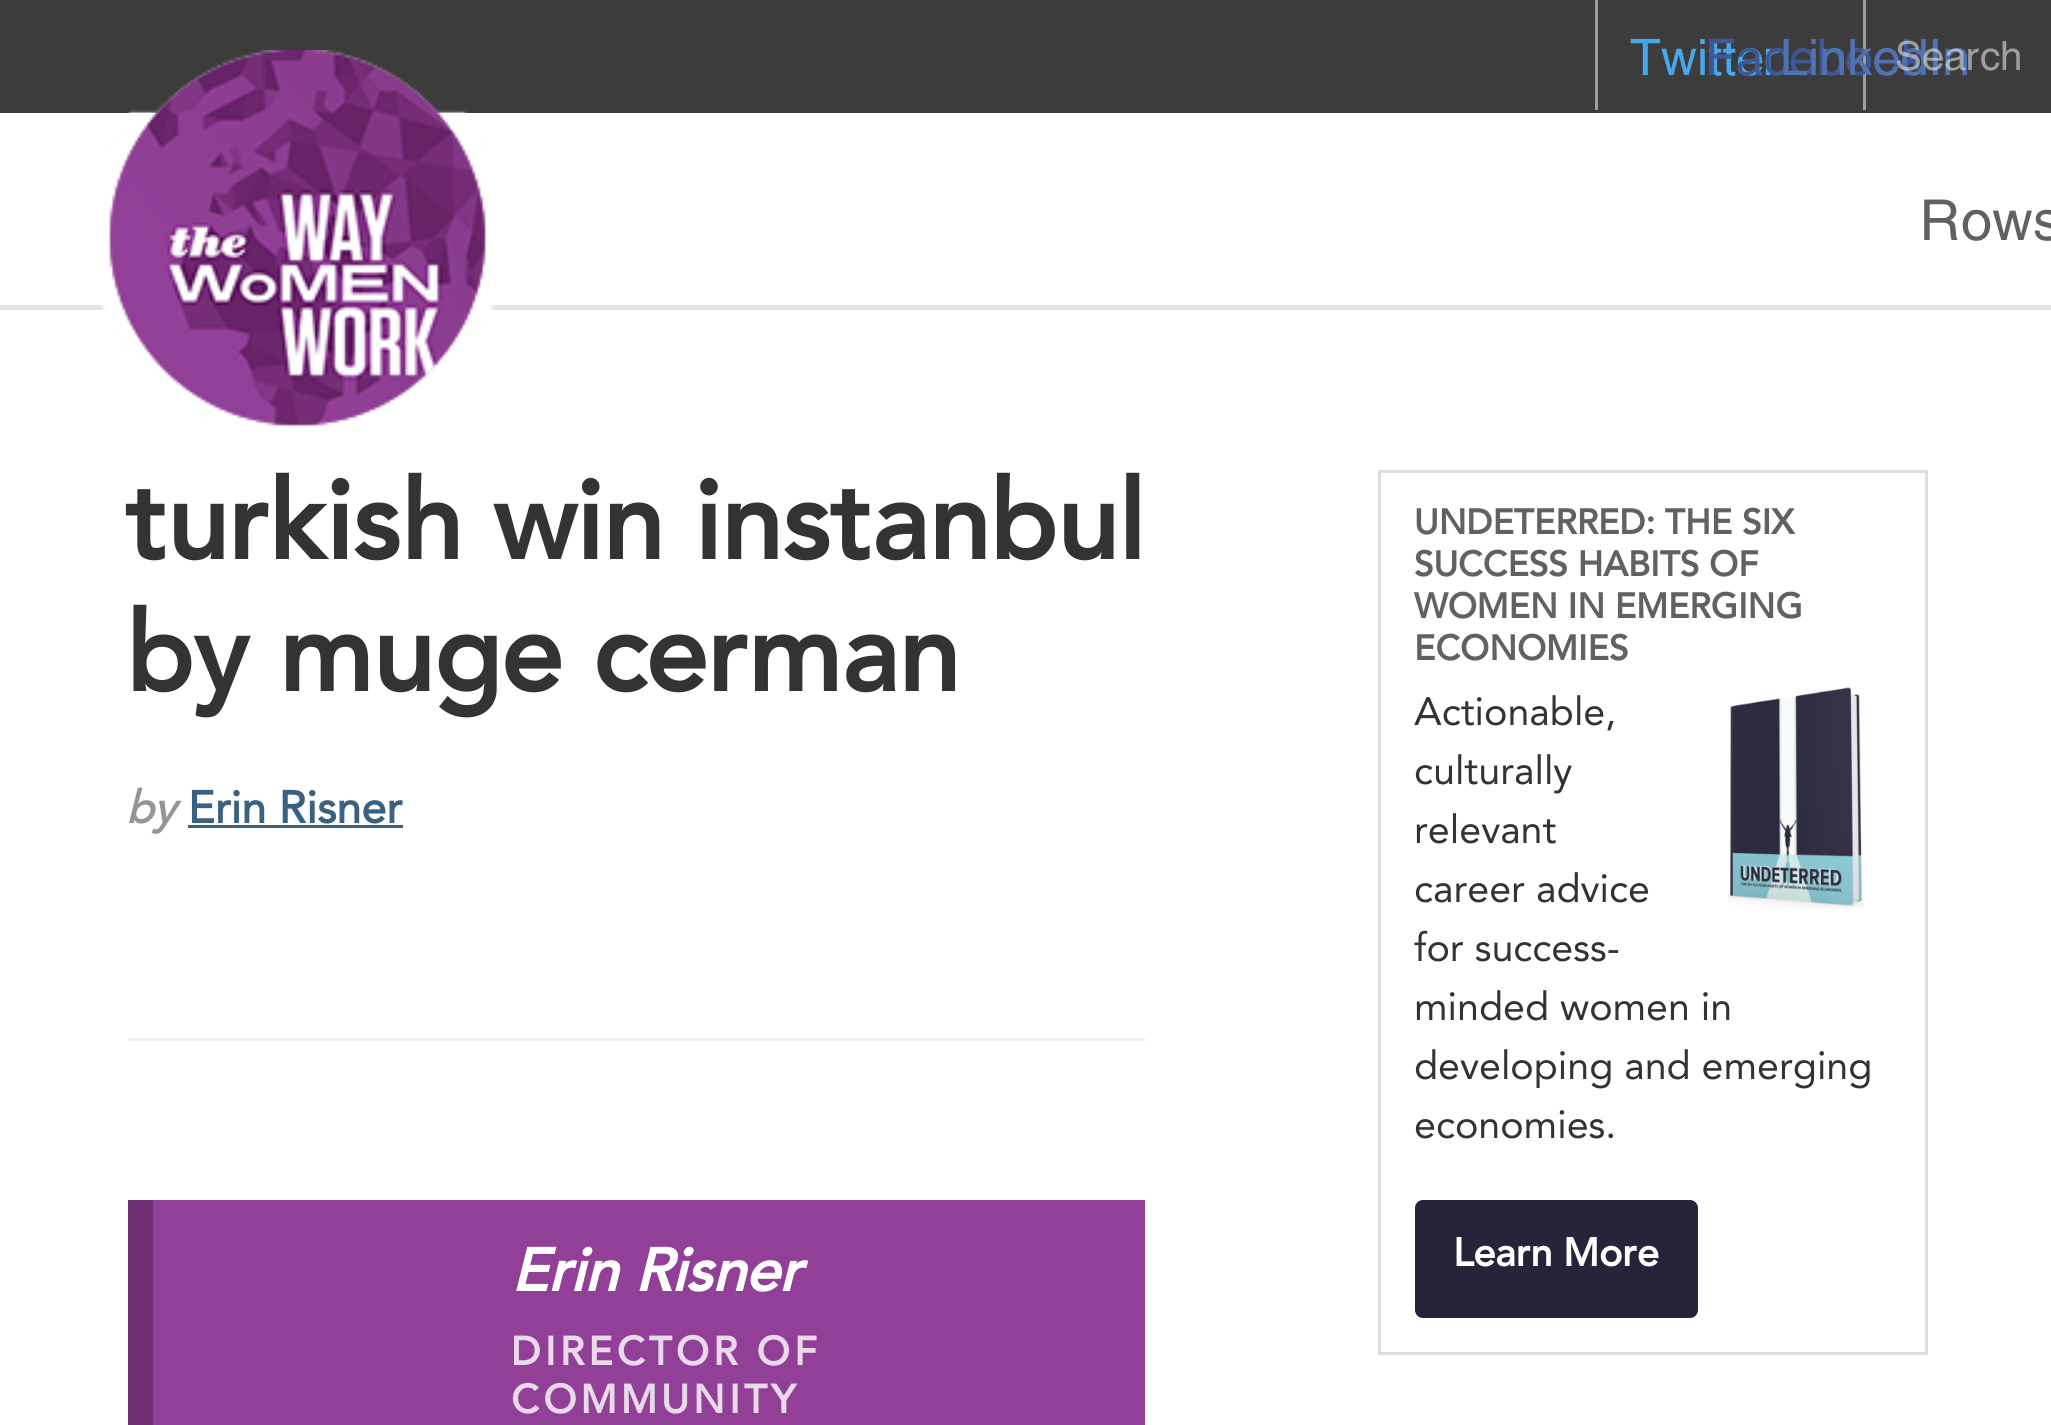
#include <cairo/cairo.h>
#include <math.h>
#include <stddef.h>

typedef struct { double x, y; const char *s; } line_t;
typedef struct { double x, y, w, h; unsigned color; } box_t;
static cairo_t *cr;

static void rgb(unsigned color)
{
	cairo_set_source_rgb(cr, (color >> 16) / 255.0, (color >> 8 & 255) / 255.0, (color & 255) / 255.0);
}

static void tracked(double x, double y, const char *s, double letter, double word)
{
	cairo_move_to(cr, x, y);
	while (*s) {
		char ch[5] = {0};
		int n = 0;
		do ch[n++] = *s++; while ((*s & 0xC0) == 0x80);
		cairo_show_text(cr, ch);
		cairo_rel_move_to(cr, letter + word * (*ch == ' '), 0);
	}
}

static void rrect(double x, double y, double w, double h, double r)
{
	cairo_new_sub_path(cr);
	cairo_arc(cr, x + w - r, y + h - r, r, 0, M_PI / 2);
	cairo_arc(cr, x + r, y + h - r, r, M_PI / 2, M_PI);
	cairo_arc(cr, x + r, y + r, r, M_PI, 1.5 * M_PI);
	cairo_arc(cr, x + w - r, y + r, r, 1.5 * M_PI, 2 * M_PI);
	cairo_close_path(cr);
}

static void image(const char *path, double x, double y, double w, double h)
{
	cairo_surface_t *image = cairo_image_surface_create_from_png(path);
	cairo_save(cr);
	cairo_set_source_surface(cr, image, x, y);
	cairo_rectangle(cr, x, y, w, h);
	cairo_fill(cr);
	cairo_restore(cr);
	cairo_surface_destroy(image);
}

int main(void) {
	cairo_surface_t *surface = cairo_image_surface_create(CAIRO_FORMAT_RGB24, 2051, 1425);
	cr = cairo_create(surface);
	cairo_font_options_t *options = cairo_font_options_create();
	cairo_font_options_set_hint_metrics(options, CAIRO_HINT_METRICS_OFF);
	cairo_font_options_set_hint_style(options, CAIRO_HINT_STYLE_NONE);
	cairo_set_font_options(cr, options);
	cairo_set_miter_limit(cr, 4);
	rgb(0xffffff);
	cairo_paint(cr);
	{
		static const box_t items[] = {
			{0, 0, 2051, 113, 0x3c3c3c},
			{1863, 0, 3, 110, 0x9e9e9e},
			{1595, 0, 3, 110, 0x9e9e9e},
		};
		for (size_t i = 0; i < sizeof items / sizeof *items; i++) {
			rgb(items[i].color);
			cairo_rectangle(cr, items[i].x, items[i].y, items[i].w, items[i].h);
			cairo_fill(cr);
		}
	}
	image("img/1.png", 1630, 38, 149, 38);
	image("img/2.png", 1709, 38, 217, 38);
	image("img/3.png", 1783, 38, 184, 38);
	image("img/4.png", 1897, 40, 123, 31);
	rgb(0xe5e5e5);
	cairo_rectangle(cr, 0, 305, 2051, 5);
	cairo_fill(cr);
	image("img/5.png", 101, 50, 393, 378);
	image("img/6.png", 1924, 199, 127, 42);
	{
		static const box_t items[] = {
			{188, 825, 215, 3, 0x3a6180},
			{128, 1038, 1017, 3, 0xefefef},
			{153, 1200, 992, 225, 0x924097},
			{128, 1200, 25, 225, 0x6f3173},
		};
		for (size_t i = 0; i < sizeof items / sizeof *items; i++) {
			rgb(items[i].color);
			cairo_rectangle(cr, items[i].x, items[i].y, items[i].w, items[i].h);
			cairo_fill(cr);
		}
	}
	cairo_rectangle(cr, 1379.5, 471.5, 547, 882);
	rgb(0xdddddd);
	cairo_set_line_width(cr, 3);
	cairo_stroke(cr);
	image("img/7.png", 1728, 687, 136, 222);
	rgb(0x262439);
	rrect(1415, 1200, 283, 118, 8);
	cairo_fill(cr);
	cairo_select_font_face(cr, "Avenir", CAIRO_FONT_SLANT_NORMAL, CAIRO_FONT_WEIGHT_BOLD);
	cairo_set_font_size(cr, 110);
	rgb(0x333333);
	cairo_move_to(cr, 126, 559);
	cairo_show_text(cr, "turkish win instanbul");
	cairo_move_to(cr, 126, 691);
	cairo_show_text(cr, "by muge cerman");
	cairo_select_font_face(cr, "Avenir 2", CAIRO_FONT_SLANT_ITALIC, CAIRO_FONT_WEIGHT_BOLD);
	cairo_set_font_size(cr, 45);
	rgb(0x959595);
	cairo_move_to(cr, 126, 823);
	cairo_show_text(cr, "by");
	cairo_select_font_face(cr, "Avenir 2", CAIRO_FONT_SLANT_NORMAL, CAIRO_FONT_WEIGHT_BOLD);
	rgb(0x3a6180);
	cairo_move_to(cr, 188, 823);
	cairo_show_text(cr, "Erin Risner");
	cairo_select_font_face(cr, "Avenir", CAIRO_FONT_SLANT_ITALIC, CAIRO_FONT_WEIGHT_BOLD);
	cairo_set_font_size(cr, 60);
	rgb(0xffffff);
	cairo_move_to(cr, 511, 1291);
	cairo_show_text(cr, "Erin Risner");
	cairo_select_font_face(cr, "Avenir", CAIRO_FONT_SLANT_NORMAL, CAIRO_FONT_WEIGHT_BOLD);
	cairo_set_font_size(cr, 40);
	rgb(0xe9d9ea);
	tracked(511, 1365, "DIRECTOR OF", 4, 0);
	tracked(511, 1413, "COMMUNITY", 4, 0);
	cairo_set_font_size(cr, 35);
	rgb(0x616161);
	{
		static const line_t items[] = {
			{1414, 534, "UNDETERRED: THE SIX"},
			{1414, 576, "SUCCESS HABITS OF"},
			{1414, 618, "WOMEN IN EMERGING"},
			{1414, 660, "ECONOMIES"},
		};
		for (size_t i = 0; i < sizeof items / sizeof *items; i++) {
			cairo_move_to(cr, items[i].x, items[i].y);
			cairo_show_text(cr, items[i].s);
		}
	}
	cairo_select_font_face(cr, "Avenir", CAIRO_FONT_SLANT_NORMAL, CAIRO_FONT_WEIGHT_NORMAL);
	cairo_set_font_size(cr, 39.4);
	rgb(0x333333);
	{
		static const line_t items[] = {
			{1414, 725, "Actionable,"},
			{1414, 784, "culturally"},
			{1414, 843, "relevant"},
			{1414, 902, "career advice"},
			{1414, 961, "for success-"},
			{1414, 1020, "minded women in"},
			{1414, 1079, "developing and emerging"},
			{1414, 1138, "economies."},
		};
		for (size_t i = 0; i < sizeof items / sizeof *items; i++) {
			cairo_move_to(cr, items[i].x, items[i].y);
			cairo_show_text(cr, items[i].s);
		}
	}
	cairo_select_font_face(cr, "Avenir", CAIRO_FONT_SLANT_NORMAL, CAIRO_FONT_WEIGHT_BOLD);
	rgb(0xffffff);
	cairo_move_to(cr, 1453, 1266);
	cairo_show_text(cr, "Learn More");
	cairo_surface_write_to_png(surface, "page.png");
	cairo_font_options_destroy(options);
	cairo_destroy(cr);
	cairo_surface_destroy(surface);
	return 0;
}
